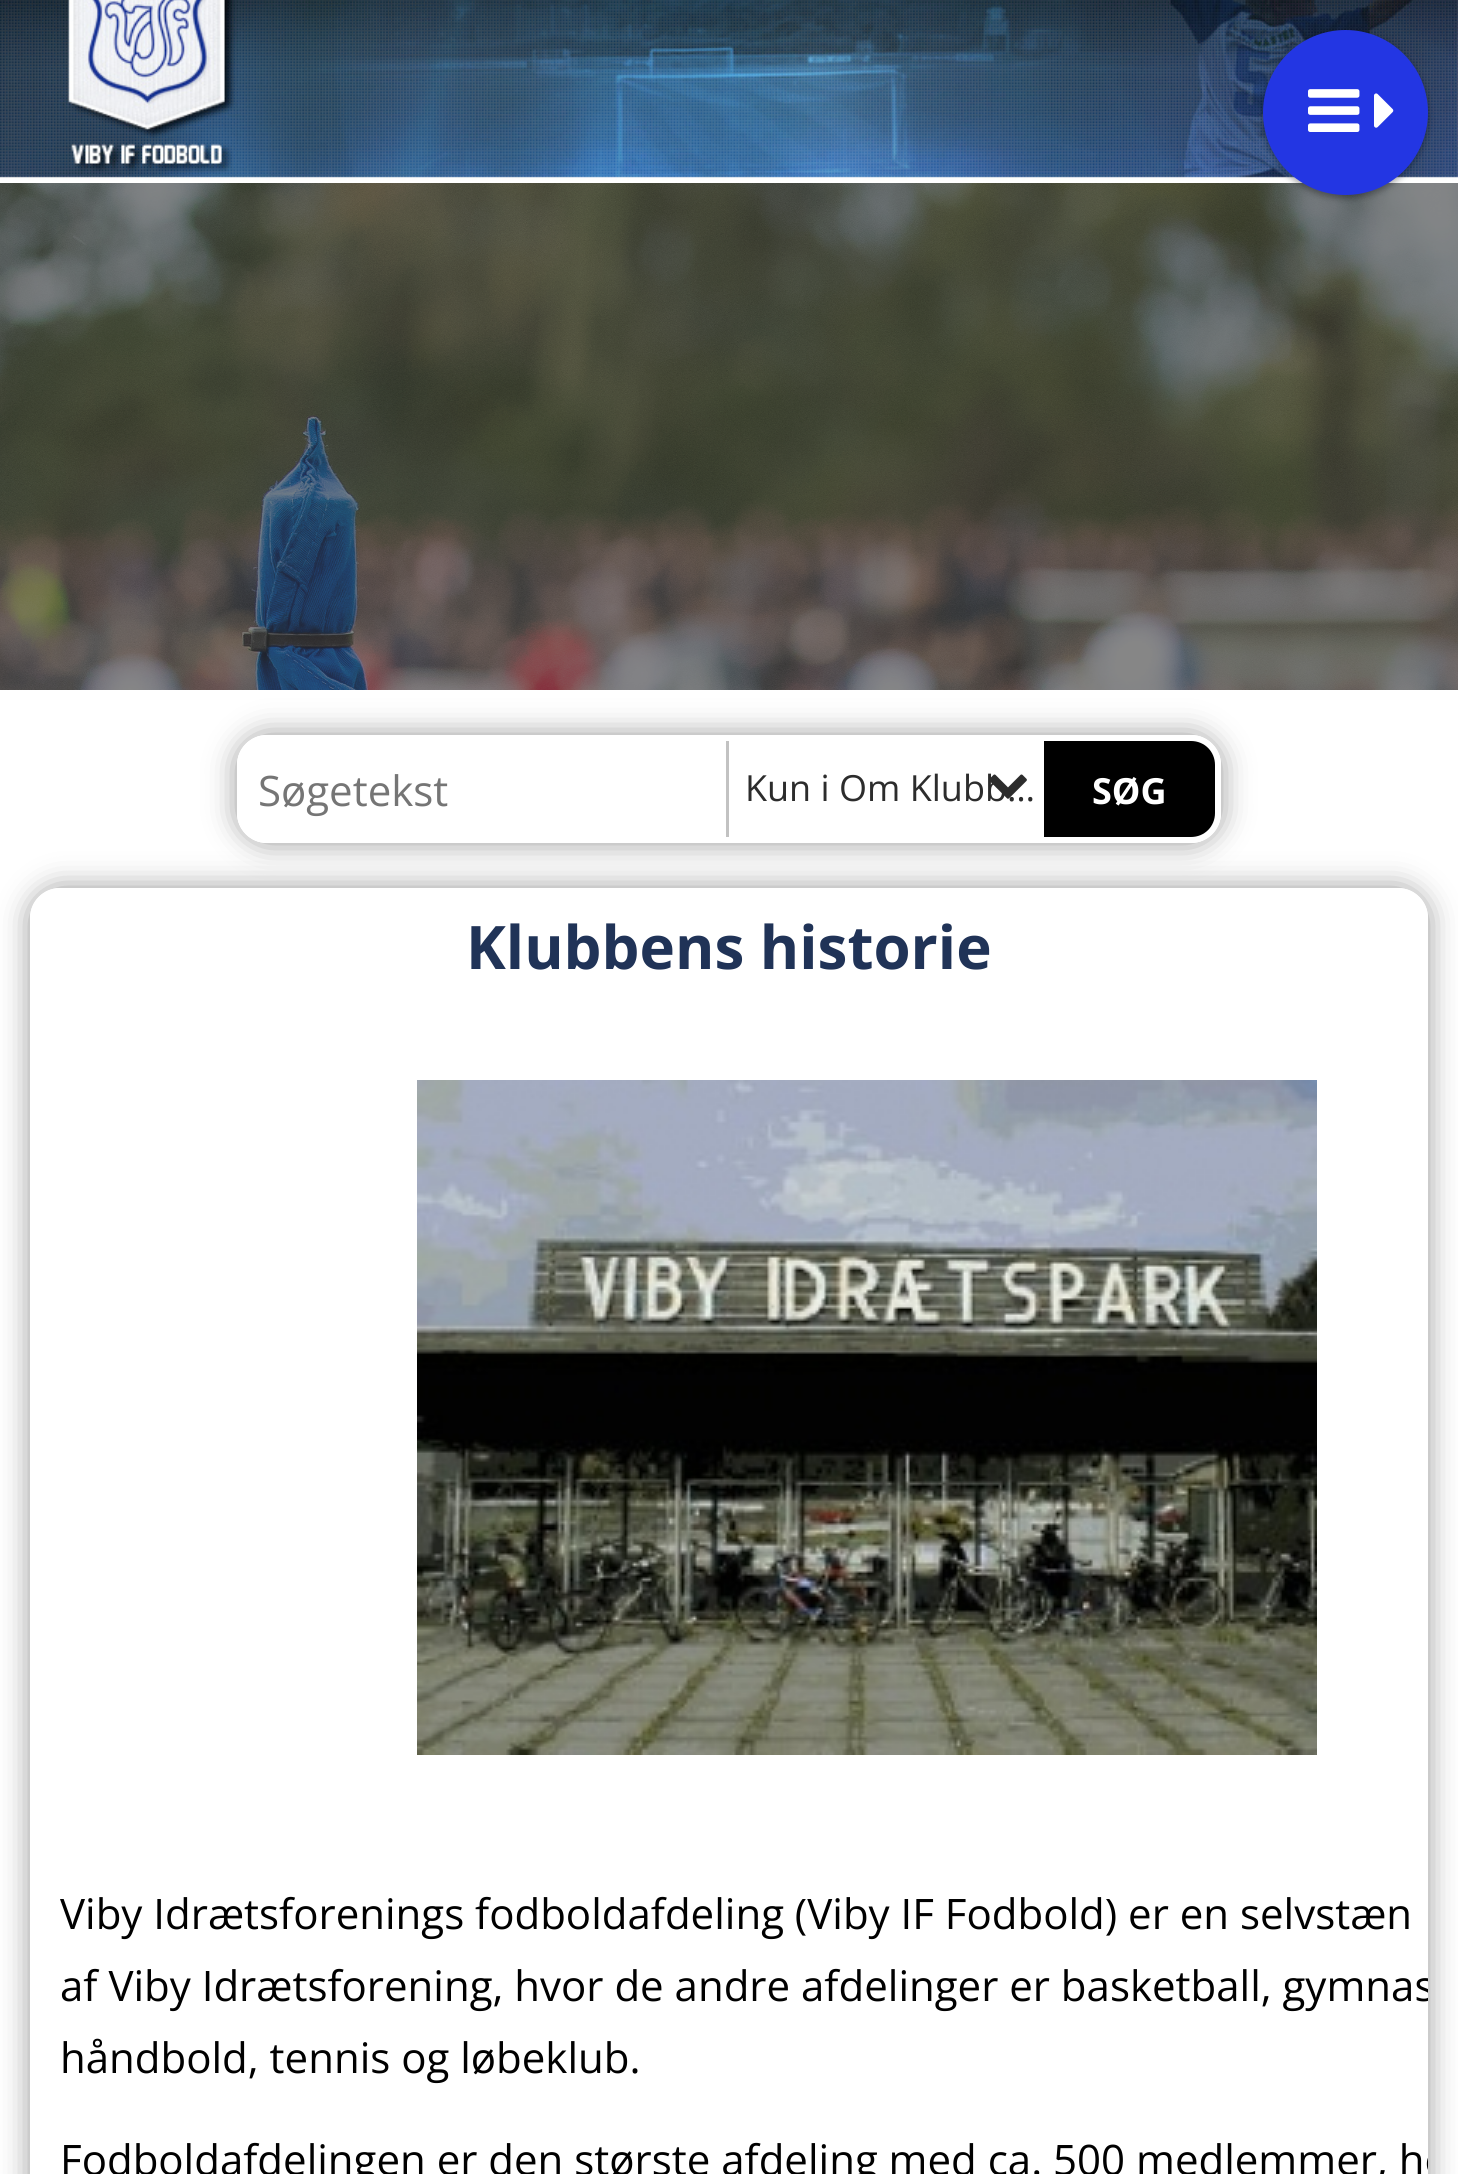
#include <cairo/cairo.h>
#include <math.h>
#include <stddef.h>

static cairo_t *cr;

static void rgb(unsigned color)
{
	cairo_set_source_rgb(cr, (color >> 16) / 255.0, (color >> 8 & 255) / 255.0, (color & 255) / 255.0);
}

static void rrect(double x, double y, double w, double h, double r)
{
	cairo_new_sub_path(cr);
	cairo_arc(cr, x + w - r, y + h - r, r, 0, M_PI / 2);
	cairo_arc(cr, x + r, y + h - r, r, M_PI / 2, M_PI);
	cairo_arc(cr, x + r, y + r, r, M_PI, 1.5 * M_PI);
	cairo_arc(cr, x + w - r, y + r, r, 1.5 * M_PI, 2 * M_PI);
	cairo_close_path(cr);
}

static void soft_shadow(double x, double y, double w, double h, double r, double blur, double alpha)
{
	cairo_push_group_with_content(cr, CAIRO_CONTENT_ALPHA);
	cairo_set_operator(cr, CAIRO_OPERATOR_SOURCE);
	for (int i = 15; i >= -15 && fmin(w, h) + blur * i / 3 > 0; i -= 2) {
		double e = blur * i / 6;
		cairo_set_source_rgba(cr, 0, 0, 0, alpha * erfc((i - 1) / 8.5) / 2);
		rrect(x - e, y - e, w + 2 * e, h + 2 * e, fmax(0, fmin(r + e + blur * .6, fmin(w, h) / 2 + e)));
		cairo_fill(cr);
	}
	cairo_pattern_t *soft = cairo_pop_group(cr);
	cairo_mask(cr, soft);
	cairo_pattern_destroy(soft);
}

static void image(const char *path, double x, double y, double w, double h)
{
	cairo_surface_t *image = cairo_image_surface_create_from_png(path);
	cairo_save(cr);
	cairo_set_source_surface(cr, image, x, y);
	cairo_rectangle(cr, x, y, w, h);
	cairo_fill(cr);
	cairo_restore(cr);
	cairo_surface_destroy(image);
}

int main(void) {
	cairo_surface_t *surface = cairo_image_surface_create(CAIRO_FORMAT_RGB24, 1458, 2174);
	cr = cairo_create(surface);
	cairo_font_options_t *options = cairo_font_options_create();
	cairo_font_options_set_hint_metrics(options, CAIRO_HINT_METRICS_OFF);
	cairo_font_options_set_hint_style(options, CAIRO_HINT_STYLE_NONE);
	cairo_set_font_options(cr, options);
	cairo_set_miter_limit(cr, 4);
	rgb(0xffffff);
	cairo_paint(cr);
	image("img/1.png", 0, 183, 1458, 507);
	rgb(0x303030);
	soft_shadow(30, 888, 1398, 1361, 30, 15, 0.5);
	rgb(0xffffff);
	rrect(30, 888, 1398, 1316, 30);
	cairo_fill(cr);
	cairo_new_path(cr);
	cairo_move_to(cr, 60, 888);
	cairo_line_to(cr, 1398, 888);
	cairo_curve_to(cr, 1414.5, 888, 1428, 901.5, 1428, 918);
	cairo_line_to(cr, 1428, 1008);
	cairo_line_to(cr, 30, 1008);
	cairo_line_to(cr, 30, 918);
	cairo_curve_to(cr, 30, 901.5, 43.5, 888, 60, 888);
	cairo_close_path(cr);
	cairo_fill(cr);
	cairo_save(cr);
	cairo_set_fill_rule(cr, CAIRO_FILL_RULE_EVEN_ODD);
	cairo_new_path(cr);
	cairo_move_to(cr, 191, 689);
	cairo_line_to(cr, 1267, 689);
	cairo_line_to(cr, 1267, 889);
	cairo_line_to(cr, 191, 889);
	cairo_close_path(cr);
	cairo_move_to(cr, 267, 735);
	cairo_line_to(cr, 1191, 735);
	cairo_curve_to(cr, 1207.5, 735, 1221, 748.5, 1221, 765);
	cairo_line_to(cr, 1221, 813);
	cairo_curve_to(cr, 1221, 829.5, 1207.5, 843, 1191, 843);
	cairo_line_to(cr, 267, 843);
	cairo_curve_to(cr, 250.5, 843, 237, 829.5, 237, 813);
	cairo_line_to(cr, 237, 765);
	cairo_curve_to(cr, 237, 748.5, 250.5, 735, 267, 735);
	cairo_close_path(cr);
	cairo_clip(cr);
	rgb(0x303030);
	soft_shadow(237, 735, 984, 108, 30, 15, 0.5);
	cairo_restore(cr);
	cairo_set_source_rgba(cr, 0.212, 0.212, 0.212, 0.6);
	cairo_rectangle(cr, 0, 183, 1458, 507);
	cairo_fill(cr);
	image("img/2.png", 0, 0, 1458, 183);
	rgb(0x000000);
	soft_shadow(1263, 33, 165, 165, 82.5, 3, 0.24);
	soft_shadow(1263, 33, 165, 165, 82.5, 4.5, 0.12);
	rgb(0x2336e3);
	cairo_arc(cr, 1345.5, 112.5, 82.5, 0, 2 * M_PI);
	cairo_fill(cr);
	image("img/3.png", 1308, 89, 52, 43);
	image("img/4.png", 1374, 93, 20, 35);
	rrect(240, 738, 978, 102, 27);
	rgb(0xffffff);
	cairo_set_line_width(cr, 6);
	cairo_stroke(cr);
	rgb(0xc2c2c2);
	cairo_rectangle(cr, 726, 741, 3, 96);
	cairo_fill(cr);
	rgb(0x000000);
	cairo_new_path(cr);
	cairo_move_to(cr, 1044, 741);
	cairo_line_to(cr, 1191, 741);
	cairo_curve_to(cr, 1204.5, 741, 1215, 751.5, 1215, 765);
	cairo_line_to(cr, 1215, 813);
	cairo_curve_to(cr, 1215, 826.5, 1204.5, 837, 1191, 837);
	cairo_line_to(cr, 1044, 837);
	cairo_close_path(cr);
	cairo_fill(cr);
	image("img/6.png", 417, 1080, 900, 675);
	cairo_select_font_face(cr, "Open Sans", CAIRO_FONT_SLANT_NORMAL, CAIRO_FONT_WEIGHT_NORMAL);
	cairo_set_font_size(cr, 42);
	rgb(0x757575);
	cairo_move_to(cr, 258, 806);
	cairo_show_text(cr, "Søgetekst");
	cairo_set_font_size(cr, 36);
	rgb(0x2c2c2c);
	cairo_move_to(cr, 745, 801);
	cairo_show_text(cr, "Kun i Om Klubb…");
	image("img/5.png", 990, 774, 37, 25);
	cairo_select_font_face(cr, "Open Sans", CAIRO_FONT_SLANT_NORMAL, CAIRO_FONT_WEIGHT_BOLD);
	rgb(0xffffff);
	cairo_move_to(cr, 1092, 804);
	cairo_show_text(cr, "SØG");
	cairo_set_font_size(cr, 60);
	rgb(0x203357);
	cairo_move_to(cr, 466, 969);
	cairo_show_text(cr, "Klubbens historie");
	cairo_select_font_face(cr, "Open Sans", CAIRO_FONT_SLANT_NORMAL, CAIRO_FONT_WEIGHT_NORMAL);
	cairo_set_font_size(cr, 42);
	rgb(0x000000);
	cairo_move_to(cr, 60, 1929);
	cairo_show_text(cr, "Viby Idrætsforenings fodboldafdeling (Viby IF Fodbold) er en selvstæn");
	cairo_save(cr);
	rrect(30, 888, 1398, 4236, 30);
	cairo_clip(cr);
	cairo_move_to(cr, 60, 2001);
	cairo_show_text(cr, "af Viby Idrætsforening, hvor de andre afdelinger er basketball, gymnas");
	cairo_restore(cr);
	cairo_move_to(cr, 60, 2073);
	cairo_show_text(cr, "håndbold, tennis og løbeklub.");
	cairo_save(cr);
	rrect(30, 888, 1398, 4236, 30);
	cairo_clip(cr);
	cairo_move_to(cr, 60, 2175);
	cairo_show_text(cr, "Fodboldafdelingen er den største afdeling med ca. 500 medlemmer, he");
	cairo_restore(cr);
	cairo_surface_write_to_png(surface, "page.png");
	cairo_font_options_destroy(options);
	cairo_destroy(cr);
	cairo_surface_destroy(surface);
	return 0;
}
